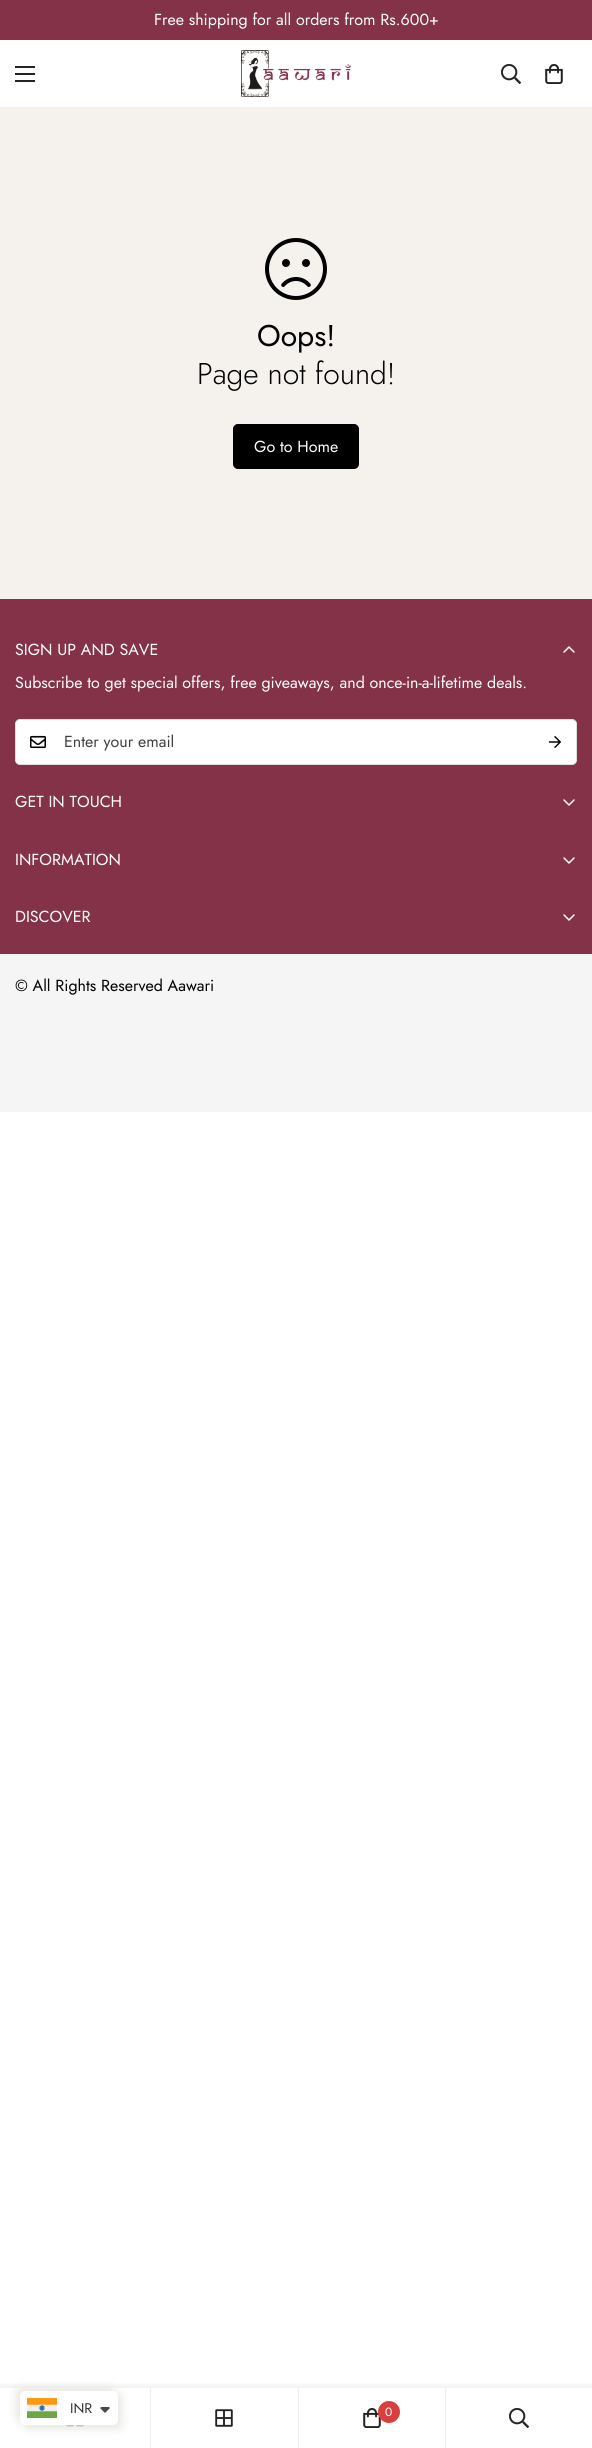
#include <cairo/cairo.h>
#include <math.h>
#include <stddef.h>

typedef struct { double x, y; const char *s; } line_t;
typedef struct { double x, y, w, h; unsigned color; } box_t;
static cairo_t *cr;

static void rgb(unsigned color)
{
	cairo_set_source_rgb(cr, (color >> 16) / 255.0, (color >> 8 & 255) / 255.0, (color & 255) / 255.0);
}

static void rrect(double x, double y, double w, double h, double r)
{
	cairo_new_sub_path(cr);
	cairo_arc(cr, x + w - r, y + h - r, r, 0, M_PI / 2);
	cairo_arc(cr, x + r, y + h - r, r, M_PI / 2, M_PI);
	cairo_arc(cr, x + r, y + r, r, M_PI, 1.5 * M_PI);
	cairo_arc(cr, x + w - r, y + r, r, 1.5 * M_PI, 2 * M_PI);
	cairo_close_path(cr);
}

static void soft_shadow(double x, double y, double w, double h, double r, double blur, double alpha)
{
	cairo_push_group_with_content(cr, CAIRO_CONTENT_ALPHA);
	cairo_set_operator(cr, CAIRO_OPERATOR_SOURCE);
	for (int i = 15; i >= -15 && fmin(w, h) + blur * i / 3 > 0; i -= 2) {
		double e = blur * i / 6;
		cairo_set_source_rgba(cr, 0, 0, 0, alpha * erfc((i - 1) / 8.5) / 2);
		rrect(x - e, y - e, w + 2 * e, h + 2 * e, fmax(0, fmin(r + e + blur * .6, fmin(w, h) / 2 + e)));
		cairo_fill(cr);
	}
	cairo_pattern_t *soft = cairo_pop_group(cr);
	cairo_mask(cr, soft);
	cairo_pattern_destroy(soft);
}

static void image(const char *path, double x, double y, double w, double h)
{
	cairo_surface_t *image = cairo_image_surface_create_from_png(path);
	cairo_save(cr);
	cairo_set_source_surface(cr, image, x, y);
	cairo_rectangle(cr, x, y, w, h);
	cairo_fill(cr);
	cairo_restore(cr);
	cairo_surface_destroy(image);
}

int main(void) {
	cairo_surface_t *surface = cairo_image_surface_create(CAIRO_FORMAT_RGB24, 592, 2448);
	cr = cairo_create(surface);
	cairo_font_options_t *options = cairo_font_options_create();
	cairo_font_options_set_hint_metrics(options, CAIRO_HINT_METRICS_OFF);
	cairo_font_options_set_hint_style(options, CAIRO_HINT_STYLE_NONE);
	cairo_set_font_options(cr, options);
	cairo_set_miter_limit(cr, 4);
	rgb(0xffffff);
	cairo_paint(cr);
	{
		static const box_t items[] = {
			{0, 0, 592, 40, 0x833247},
			{15, 73, 20, 2, 0x222222},
			{15, 66, 20, 2, 0x222222},
			{15, 80, 20, 2, 0x222222},
		};
		for (size_t i = 0; i < sizeof items / sizeof *items; i++) {
			rgb(items[i].color);
			cairo_rectangle(cr, items[i].x, items[i].y, items[i].w, items[i].h);
			cairo_fill(cr);
		}
	}
	image("img/1.png", 241, 50, 110, 47);
	image("img/2.png", 501, 64, 20, 20);
	image("img/3.png", 545, 64, 18, 20);
	rgb(0xf5f1ed);
	cairo_rectangle(cr, 0, 107, 592, 492);
	cairo_fill(cr);
	image("img/4.png", 265, 238, 62, 62);
	rgb(0x000000);
	rrect(233.5, 424.5, 125, 44, 4.5);
	cairo_fill_preserve(cr);
	cairo_set_line_width(cr, 1);
	cairo_stroke(cr);
	rgb(0x833247);
	cairo_rectangle(cr, 0, 599, 592, 355);
	cairo_fill(cr);
	image("img/5.png", 563, 646, 12, 7);
	rgb(0xffffff);
	rrect(15.5, 719.5, 561, 45, 4.5);
	cairo_fill_preserve(cr);
	rgb(0xdedede);
	cairo_stroke(cr);
	image("img/6.png", 30, 735, 16, 14);
	image("img/7.png", 548, 736, 13, 12);
	image("img/8.png", 563, 799, 12, 7);
	image("img/8.png", 563, 857, 12, 7);
	image("img/8.png", 563, 914, 12, 7);
	rgb(0xf5f5f5);
	cairo_rectangle(cr, 0, 954, 592, 158);
	cairo_fill(cr);
	cairo_save(cr);
	cairo_rectangle(cr, 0, 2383, 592, 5);
	cairo_clip(cr);
	rgb(0x222222);
	soft_shadow(0, 2388, 592, 60, 0, 5, 0.12);
	cairo_restore(cr);
	image("img/10.png", 66, 2425, 18, 2);
	rgb(0xe8e8e2);
	soft_shadow(16, 2387, 98, 34, 5, 4.5, 1);
	soft_shadow(24, 2395, 98, 34, 5, 4.5, 1);
	rgb(0xffffff);
	rrect(20, 2391, 98, 34, 5);
	cairo_fill(cr);
	image("img/9.png", 27, 2398, 30, 20);
	rgb(0x474942);
	cairo_new_path(cr);
	cairo_move_to(cr, 102, 2407);
	cairo_curve_to(cr, 101, 2407, 100.5, 2407.5, 100, 2408);
	cairo_line_to(cr, 105, 2413);
	cairo_line_to(cr, 110, 2408);
	cairo_line_to(cr, 109, 2407);
	cairo_close_path(cr);
	cairo_fill(cr);
	rgb(0xeeeeee);
	cairo_rectangle(cr, 150, 2388, 1, 60);
	cairo_fill(cr);
	cairo_rectangle(cr, 298, 2388, 1, 60);
	cairo_fill(cr);
	image("img/11.png", 215, 2409, 18, 18);
	cairo_rectangle(cr, 445, 2388, 1, 60);
	cairo_fill(cr);
	image("img/3.png", 363, 2408, 18, 20);
	rgb(0xda3f3f);
	cairo_arc(cr, 389, 2412, 11, 0, 2 * M_PI);
	cairo_fill(cr);
	image("img/2.png", 509, 2408, 20, 20);
	cairo_select_font_face(cr, "Jost", CAIRO_FONT_SLANT_NORMAL, CAIRO_FONT_WEIGHT_NORMAL);
	cairo_set_font_size(cr, 16);
	rgb(0xffffff);
	cairo_move_to(cr, 154, 25);
	cairo_show_text(cr, "Free shipping for all orders from Rs.600+");
	cairo_set_font_size(cr, 30);
	rgb(0x000000);
	cairo_move_to(cr, 257, 346);
	cairo_show_text(cr, "Oops!");
	cairo_select_font_face(cr, "Jost Light", CAIRO_FONT_SLANT_NORMAL, CAIRO_FONT_WEIGHT_NORMAL);
	cairo_move_to(cr, 197, 384);
	cairo_show_text(cr, "Page not found!");
	cairo_select_font_face(cr, "Jost", CAIRO_FONT_SLANT_NORMAL, CAIRO_FONT_WEIGHT_NORMAL);
	cairo_set_font_size(cr, 16);
	rgb(0xffffff);
	{
		static const line_t items[] = {
			{254, 452, "Go to Home"},
			{15, 655, "SIGN UP AND SAVE"},
			{15, 688, "Subscribe to get special offers, free giveaways, and once-in-a-lifetime deals."},
		};
		for (size_t i = 0; i < sizeof items / sizeof *items; i++) {
			cairo_move_to(cr, items[i].x, items[i].y);
			cairo_show_text(cr, items[i].s);
		}
	}
	rgb(0x404040);
	cairo_move_to(cr, 64, 747);
	cairo_show_text(cr, "Enter your email");
	rgb(0xffffff);
	{
		static const line_t items[] = {
			{15, 807, "GET IN TOUCH"},
			{15, 865, "INFORMATION"},
			{15, 922, "DISCOVER"},
		};
		for (size_t i = 0; i < sizeof items / sizeof *items; i++) {
			cairo_move_to(cr, items[i].x, items[i].y);
			cairo_show_text(cr, items[i].s);
		}
	}
	rgb(0x000000);
	cairo_move_to(cr, 15, 991);
	cairo_show_text(cr, "© All Rights Reserved Aawari");
	cairo_set_font_size(cr, 14);
	rgb(0x333333);
	cairo_move_to(cr, 70, 2413);
	cairo_show_text(cr, "INR");
	cairo_set_font_size(cr, 12);
	rgb(0xffffff);
	cairo_move_to(cr, 385, 2416);
	cairo_show_text(cr, "0");
	cairo_surface_write_to_png(surface, "page.png");
	cairo_font_options_destroy(options);
	cairo_destroy(cr);
	cairo_surface_destroy(surface);
	return 0;
}
